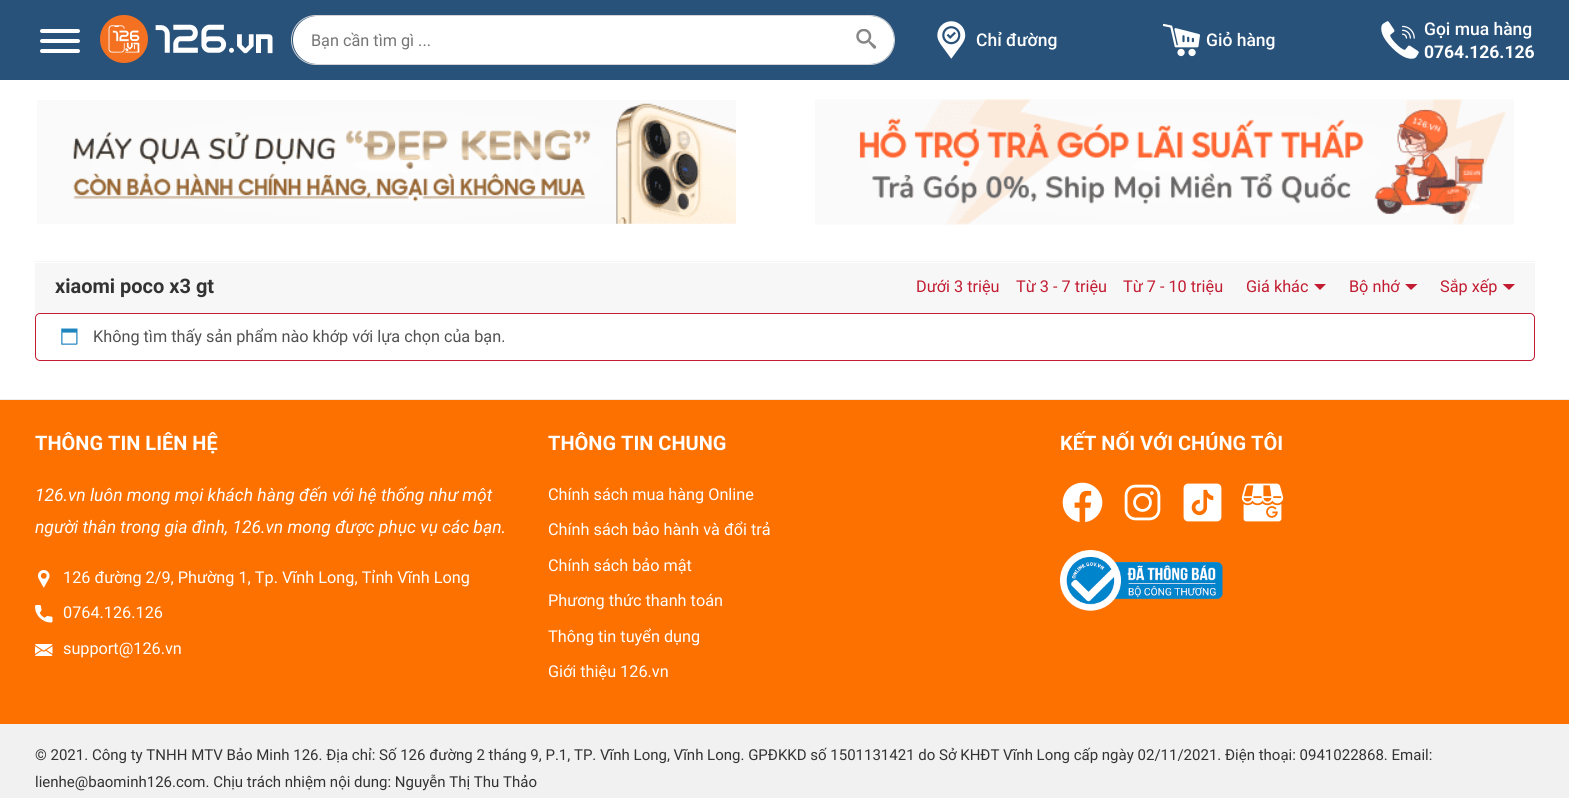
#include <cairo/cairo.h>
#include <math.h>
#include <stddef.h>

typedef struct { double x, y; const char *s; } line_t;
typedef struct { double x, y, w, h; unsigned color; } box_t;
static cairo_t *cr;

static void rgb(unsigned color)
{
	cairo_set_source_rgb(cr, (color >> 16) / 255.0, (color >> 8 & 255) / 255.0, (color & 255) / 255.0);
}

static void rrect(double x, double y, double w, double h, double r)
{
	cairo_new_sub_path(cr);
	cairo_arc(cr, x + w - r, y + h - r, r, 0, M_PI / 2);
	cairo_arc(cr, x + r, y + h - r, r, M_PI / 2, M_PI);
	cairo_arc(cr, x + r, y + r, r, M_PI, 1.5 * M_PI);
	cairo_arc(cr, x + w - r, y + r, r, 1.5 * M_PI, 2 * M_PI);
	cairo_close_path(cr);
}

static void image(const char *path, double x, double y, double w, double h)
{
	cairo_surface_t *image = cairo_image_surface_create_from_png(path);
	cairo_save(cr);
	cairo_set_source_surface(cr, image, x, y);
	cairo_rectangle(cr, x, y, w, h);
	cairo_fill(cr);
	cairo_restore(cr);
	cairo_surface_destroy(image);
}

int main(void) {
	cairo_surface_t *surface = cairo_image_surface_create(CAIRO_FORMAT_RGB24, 1569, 798);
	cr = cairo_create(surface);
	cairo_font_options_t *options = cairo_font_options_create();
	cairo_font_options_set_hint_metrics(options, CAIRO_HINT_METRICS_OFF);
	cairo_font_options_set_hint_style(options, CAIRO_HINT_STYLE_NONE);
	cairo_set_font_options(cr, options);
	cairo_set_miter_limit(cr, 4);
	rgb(0xffffff);
	cairo_paint(cr);
	rgb(0x28527a);
	cairo_rectangle(cr, 0, 0, 1569, 80);
	cairo_fill(cr);
	rgb(0xffffff);
	rrect(40, 29, 40, 4, 2);
	cairo_fill(cr);
	rrect(40, 39, 40, 4, 2);
	cairo_fill(cr);
	rrect(40, 49, 40, 4, 2);
	cairo_fill(cr);
	image("img/1.png", 100, 15, 173, 48);
	rrect(291.5, 15.5, 603, 49, 24.5);
	rgb(0xd3d3d3);
	cairo_set_line_width(cr, 1);
	cairo_stroke(cr);
	rgb(0xffffff);
	rrect(293, 16, 601, 48, 24);
	cairo_fill(cr);
	image("img/2.png", 856, 29, 20, 20);
	image("img/3.png", 937, 21, 29, 38);
	image("img/4.png", 1163, 23, 37, 34);
	image("img/5.png", 1381, 21, 38, 38);
	image("img/6.png", 37, 100, 699, 124);
	image("img/7.png", 815, 99, 699, 126);
	{
		static const box_t items[] = {
			{35, 261, 1500, 1, 0xf5f5f5},
			{36, 263, 1498, 50, 0xf7f7f7},
			{1534, 263, 1, 50, 0xf5f5f5},
			{35, 263, 1, 50, 0xf5f5f5},
		};
		for (size_t i = 0; i < sizeof items / sizeof *items; i++) {
			rgb(items[i].color);
			cairo_rectangle(cr, items[i].x, items[i].y, items[i].w, items[i].h);
			cairo_fill(cr);
		}
	}
	rgb(0xc21d32);
	cairo_new_path(cr);
	cairo_move_to(cr, 1314, 284);
	cairo_line_to(cr, 1326, 284);
	cairo_line_to(cr, 1320, 290);
	cairo_close_path(cr);
	cairo_fill(cr);
	cairo_new_path(cr);
	cairo_move_to(cr, 1405, 284);
	cairo_line_to(cr, 1417.5, 284);
	cairo_line_to(cr, 1411, 290);
	cairo_close_path(cr);
	cairo_fill(cr);
	cairo_new_path(cr);
	cairo_move_to(cr, 1502.5, 284);
	cairo_line_to(cr, 1515, 284);
	cairo_line_to(cr, 1509, 290);
	cairo_close_path(cr);
	cairo_fill(cr);
	rrect(35.5, 313.5, 1499, 47, 4.5);
	cairo_stroke(cr);
	image("img/8.png", 61, 328, 17, 17);
	rgb(0xfc7100);
	cairo_rectangle(cr, 0, 400, 1569, 324);
	cairo_fill(cr);
	rgb(0xefeeee);
	cairo_rectangle(cr, 0, 399, 1569, 1);
	cairo_fill(cr);
	image("img/9.png", 37, 570, 13, 18);
	image("img/10.png", 35, 605, 18, 18);
	image("img/11.png", 35, 644, 18, 12);
	image("img/12.png", 1062, 482, 41, 41);
	image("img/13.png", 1124, 484, 37, 37);
	image("img/14.png", 1183, 483, 39, 39);
	image("img/15.png", 1241, 483, 43, 39);
	image("img/16.png", 1060, 550, 163, 61);
	rgb(0xf1f1f1);
	cairo_rectangle(cr, 0, 724, 1569, 74);
	cairo_fill(cr);
	cairo_select_font_face(cr, "Roboto", CAIRO_FONT_SLANT_NORMAL, CAIRO_FONT_WEIGHT_NORMAL);
	cairo_set_font_size(cr, 16.25);
	rgb(0x757575);
	cairo_move_to(cr, 311, 46);
	cairo_show_text(cr, "Bạn cần tìm gì ...");
	cairo_select_font_face(cr, "Roboto Medium", CAIRO_FONT_SLANT_NORMAL, CAIRO_FONT_WEIGHT_NORMAL);
	cairo_set_font_size(cr, 17.5);
	rgb(0xffffff);
	{
		static const line_t items[] = {
			{976, 46, "Chỉ đường"},
			{1206, 46, "Giỏ hàng"},
			{1424, 35, "Gọi mua hàng"},
		};
		for (size_t i = 0; i < sizeof items / sizeof *items; i++) {
			cairo_move_to(cr, items[i].x, items[i].y);
			cairo_show_text(cr, items[i].s);
		}
	}
	cairo_select_font_face(cr, "Roboto", CAIRO_FONT_SLANT_NORMAL, CAIRO_FONT_WEIGHT_BOLD);
	cairo_move_to(cr, 1424, 58);
	cairo_show_text(cr, "0764.126.126");
	cairo_set_font_size(cr, 20);
	rgb(0x333333);
	cairo_move_to(cr, 55, 293);
	cairo_show_text(cr, "xiaomi poco x3 gt");
	cairo_select_font_face(cr, "Roboto", CAIRO_FONT_SLANT_NORMAL, CAIRO_FONT_WEIGHT_NORMAL);
	cairo_set_font_size(cr, 16.25);
	rgb(0xc21d32);
	{
		static const line_t items[] = {
			{916, 292, "Dưới 3 triệu"},
			{1016, 292, "Từ 3 - 7 triệu"},
			{1123, 292, "Từ 7 - 10 triệu"},
			{1246, 292, "Giá khác"},
			{1349, 292, "Bộ nhớ"},
			{1440, 292, "Sắp xếp"},
		};
		for (size_t i = 0; i < sizeof items / sizeof *items; i++) {
			cairo_move_to(cr, items[i].x, items[i].y);
			cairo_show_text(cr, items[i].s);
		}
	}
	rgb(0x515151);
	cairo_move_to(cr, 93, 342);
	cairo_show_text(cr, "Không tìm thấy sản phẩm nào khớp với lựa chọn của bạn.");
	cairo_select_font_face(cr, "Roboto", CAIRO_FONT_SLANT_NORMAL, CAIRO_FONT_WEIGHT_BOLD);
	cairo_set_font_size(cr, 20);
	rgb(0xffffff);
	cairo_move_to(cr, 35, 450);
	cairo_show_text(cr, "THÔNG TIN LIÊN HỆ");
	cairo_select_font_face(cr, "Roboto", CAIRO_FONT_SLANT_ITALIC, CAIRO_FONT_WEIGHT_NORMAL);
	cairo_set_font_size(cr, 17.5);
	cairo_move_to(cr, 35, 501);
	cairo_show_text(cr, "126.vn luôn mong mọi khách hàng đến với hệ thống như một");
	cairo_move_to(cr, 35, 533);
	cairo_show_text(cr, "người thân trong gia đình, 126.vn mong được phục vụ các bạn.");
	cairo_select_font_face(cr, "Roboto", CAIRO_FONT_SLANT_NORMAL, CAIRO_FONT_WEIGHT_NORMAL);
	cairo_set_font_size(cr, 16.25);
	{
		static const line_t items[] = {
			{63, 583, "126 đường 2/9, Phường 1, Tp. Vĩnh Long, Tỉnh Vĩnh Long"},
			{63, 618, "0764.126.126"},
			{63, 654, "support@126.vn"},
		};
		for (size_t i = 0; i < sizeof items / sizeof *items; i++) {
			cairo_move_to(cr, items[i].x, items[i].y);
			cairo_show_text(cr, items[i].s);
		}
	}
	cairo_select_font_face(cr, "Roboto", CAIRO_FONT_SLANT_NORMAL, CAIRO_FONT_WEIGHT_BOLD);
	cairo_set_font_size(cr, 20);
	cairo_move_to(cr, 548, 450);
	cairo_show_text(cr, "THÔNG TIN CHUNG");
	cairo_select_font_face(cr, "Roboto", CAIRO_FONT_SLANT_NORMAL, CAIRO_FONT_WEIGHT_NORMAL);
	cairo_set_font_size(cr, 16.25);
	{
		static const line_t items[] = {
			{548, 500, "Chính sách mua hàng Online"},
			{548, 535, "Chính sách bảo hành và đổi trả"},
			{548, 571, "Chính sách bảo mật"},
			{548, 606, "Phương thức thanh toán"},
			{548, 642, "Thông tin tuyển dụng"},
			{548, 677, "Giới thiệu 126.vn"},
		};
		for (size_t i = 0; i < sizeof items / sizeof *items; i++) {
			cairo_move_to(cr, items[i].x, items[i].y);
			cairo_show_text(cr, items[i].s);
		}
	}
	cairo_select_font_face(cr, "Roboto", CAIRO_FONT_SLANT_NORMAL, CAIRO_FONT_WEIGHT_BOLD);
	cairo_set_font_size(cr, 20);
	cairo_move_to(cr, 1060, 450);
	cairo_show_text(cr, "KẾT NỐI VỚI CHÚNG TÔI");
	cairo_select_font_face(cr, "Roboto", CAIRO_FONT_SLANT_NORMAL, CAIRO_FONT_WEIGHT_NORMAL);
	cairo_set_font_size(cr, 15);
	rgb(0x333333);
	cairo_move_to(cr, 35, 760);
	cairo_show_text(cr, "© 2021. Công ty TNHH MTV Bảo Minh 126. Địa chỉ: Số 126 đường 2 tháng 9, P.1, TP. Vĩnh Long, Vĩnh Long. GPĐKKD số 1501131421 do Sở KHĐT Vĩnh Long cấp ngày 02/11/2021. Điện thoại: 0941022868. Email:");
	cairo_move_to(cr, 35, 787);
	cairo_show_text(cr, "lienhe@baominh126.com. Chịu trách nhiệm nội dung: Nguyễn Thị Thu Thảo");
	cairo_surface_write_to_png(surface, "page.png");
	cairo_font_options_destroy(options);
	cairo_destroy(cr);
	cairo_surface_destroy(surface);
	return 0;
}
